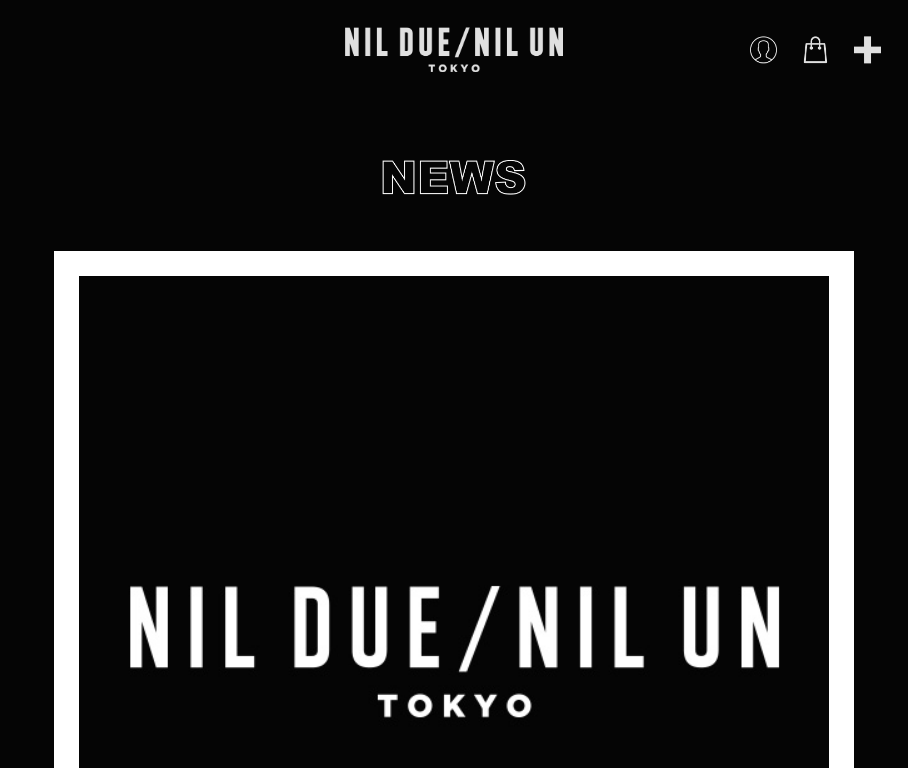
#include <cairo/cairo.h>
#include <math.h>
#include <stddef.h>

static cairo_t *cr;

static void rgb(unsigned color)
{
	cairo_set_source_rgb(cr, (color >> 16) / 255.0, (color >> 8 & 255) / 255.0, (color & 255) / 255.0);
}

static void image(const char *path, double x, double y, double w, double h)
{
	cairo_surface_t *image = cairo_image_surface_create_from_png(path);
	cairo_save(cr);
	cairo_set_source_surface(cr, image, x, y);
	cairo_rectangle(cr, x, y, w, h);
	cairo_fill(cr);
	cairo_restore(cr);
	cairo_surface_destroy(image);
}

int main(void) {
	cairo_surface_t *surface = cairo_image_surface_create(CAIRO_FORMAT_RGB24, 908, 768);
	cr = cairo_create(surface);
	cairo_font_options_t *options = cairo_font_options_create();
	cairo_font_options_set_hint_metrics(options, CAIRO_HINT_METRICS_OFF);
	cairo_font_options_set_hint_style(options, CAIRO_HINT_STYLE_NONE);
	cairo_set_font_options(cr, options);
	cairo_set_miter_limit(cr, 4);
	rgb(0x050505);
	cairo_paint(cr);
	image("img/1.png", 345, 27, 218, 45);
	image("img/2.png", 750, 36, 27, 28);
	image("img/3.png", 803, 36, 25, 28);
	image("img/4.png", 854, 36, 27, 28);
	image("img/5.png", 382, 160, 144, 35);
	rgb(0xffffff);
	cairo_rectangle(cr, 54, 251, 800, 517);
	cairo_fill(cr);
	image("img/6.png", 79, 276, 750, 492);
	cairo_surface_write_to_png(surface, "page.png");
	cairo_font_options_destroy(options);
	cairo_destroy(cr);
	cairo_surface_destroy(surface);
	return 0;
}
